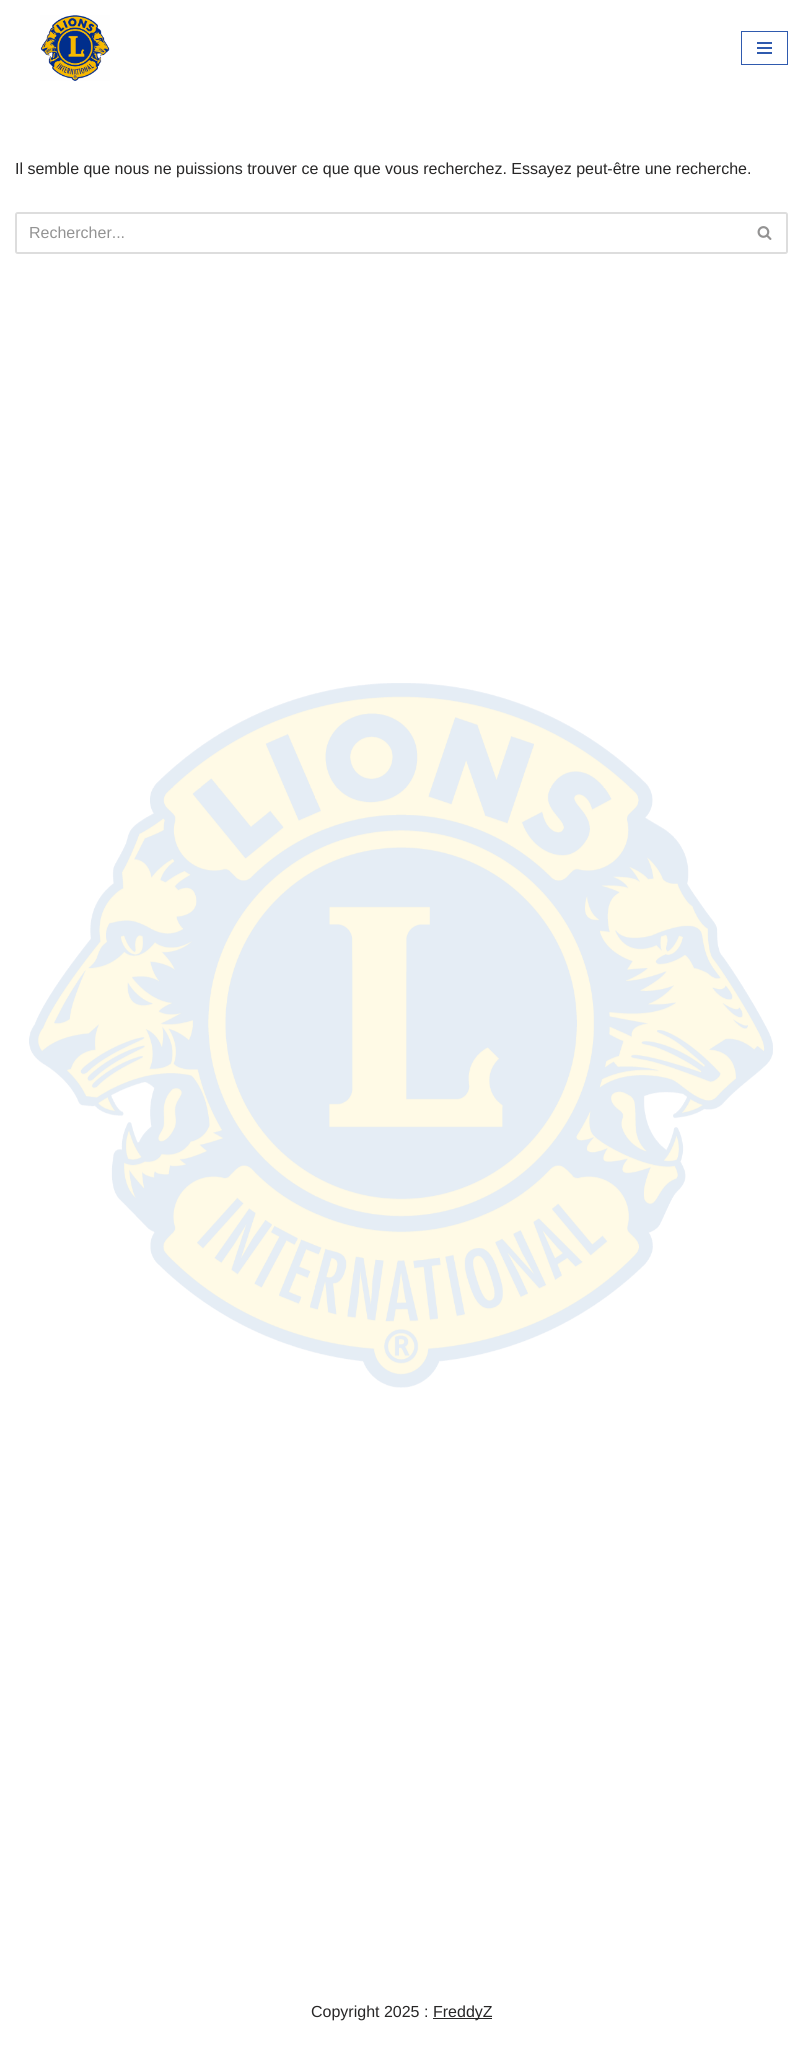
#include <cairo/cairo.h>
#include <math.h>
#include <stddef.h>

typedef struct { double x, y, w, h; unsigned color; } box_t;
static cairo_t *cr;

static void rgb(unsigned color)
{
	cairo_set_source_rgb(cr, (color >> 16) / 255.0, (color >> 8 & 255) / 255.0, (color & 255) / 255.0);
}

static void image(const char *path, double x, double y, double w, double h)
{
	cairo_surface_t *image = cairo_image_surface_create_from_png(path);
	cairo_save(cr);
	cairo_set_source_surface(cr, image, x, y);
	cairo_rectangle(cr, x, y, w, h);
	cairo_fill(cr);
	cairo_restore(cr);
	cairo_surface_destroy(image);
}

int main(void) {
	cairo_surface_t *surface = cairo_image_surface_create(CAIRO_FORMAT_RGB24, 803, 2070);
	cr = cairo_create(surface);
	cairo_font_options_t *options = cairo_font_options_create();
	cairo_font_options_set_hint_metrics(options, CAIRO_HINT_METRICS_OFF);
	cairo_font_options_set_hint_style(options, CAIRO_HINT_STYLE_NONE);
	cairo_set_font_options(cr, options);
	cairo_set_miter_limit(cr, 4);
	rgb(0xffffff);
	cairo_paint(cr);
	image("img/1.png", 29, 683, 744, 705);
	image("img/2.png", 40, 15, 70, 66);
	cairo_rectangle(cr, 741.5, 31.5, 46, 33);
	rgb(0x2f5aae);
	cairo_set_line_width(cr, 1);
	cairo_stroke(cr);
	{
		static const box_t items[] = {
			{757, 42, 15, 2, 0x2f5aae},
			{757, 47, 15, 2, 0x2f5aae},
			{757, 52, 15, 2, 0x2f5aae},
		};
		for (size_t i = 0; i < sizeof items / sizeof *items; i++) {
			rgb(items[i].color);
			cairo_rectangle(cr, items[i].x, items[i].y, items[i].w, items[i].h);
			cairo_fill(cr);
		}
	}
	rgb(0xdddddd);
	cairo_set_fill_rule(cr, CAIRO_FILL_RULE_EVEN_ODD);
	cairo_new_path(cr);
	cairo_move_to(cr, 18, 212);
	cairo_line_to(cr, 743, 212);
	cairo_line_to(cr, 743, 254);
	cairo_line_to(cr, 18, 254);
	cairo_curve_to(cr, 16, 254, 15, 253, 15, 251);
	cairo_line_to(cr, 15, 215);
	cairo_curve_to(cr, 15, 213, 16, 212, 18, 212);
	cairo_close_path(cr);
	cairo_move_to(cr, 18, 214);
	cairo_line_to(cr, 743, 214);
	cairo_line_to(cr, 743, 252);
	cairo_line_to(cr, 18, 252);
	cairo_curve_to(cr, 17, 252, 17, 252, 17, 251);
	cairo_line_to(cr, 17, 215);
	cairo_curve_to(cr, 17, 214, 17, 214, 18, 214);
	cairo_close_path(cr);
	cairo_fill(cr);
	cairo_new_path(cr);
	cairo_move_to(cr, 743, 212);
	cairo_line_to(cr, 785, 212);
	cairo_curve_to(cr, 787, 212, 788, 213, 788, 215);
	cairo_line_to(cr, 788, 251);
	cairo_curve_to(cr, 788, 253, 787, 254, 785, 254);
	cairo_line_to(cr, 743, 254);
	cairo_close_path(cr);
	cairo_move_to(cr, 743, 214);
	cairo_line_to(cr, 785, 214);
	cairo_curve_to(cr, 786, 214, 786, 214, 786, 215);
	cairo_line_to(cr, 786, 251);
	cairo_curve_to(cr, 786, 252, 786, 252, 785, 252);
	cairo_line_to(cr, 743, 252);
	cairo_close_path(cr);
	cairo_fill(cr);
	image("img/3.png", 757, 226, 15, 14);
	rgb(0x272626);
	cairo_rectangle(cr, 433, 2018, 59, 1);
	cairo_fill(cr);
	cairo_select_font_face(cr, "Liberation Sans", CAIRO_FONT_SLANT_NORMAL, CAIRO_FONT_WEIGHT_NORMAL);
	cairo_set_font_size(cr, 16);
	cairo_move_to(cr, 15, 174);
	cairo_show_text(cr, "Il semble que nous ne puissions trouver ce que que vous recherchez. Essayez peut-être une recherche.");
	rgb(0x939393);
	cairo_move_to(cr, 29, 238);
	cairo_show_text(cr, "Rechercher...");
	rgb(0x272626);
	cairo_move_to(cr, 311, 2017);
	cairo_show_text(cr, "Copyright 2025 :");
	cairo_move_to(cr, 433, 2017);
	cairo_show_text(cr, "FreddyZ");
	cairo_surface_write_to_png(surface, "page.png");
	cairo_font_options_destroy(options);
	cairo_destroy(cr);
	cairo_surface_destroy(surface);
	return 0;
}
